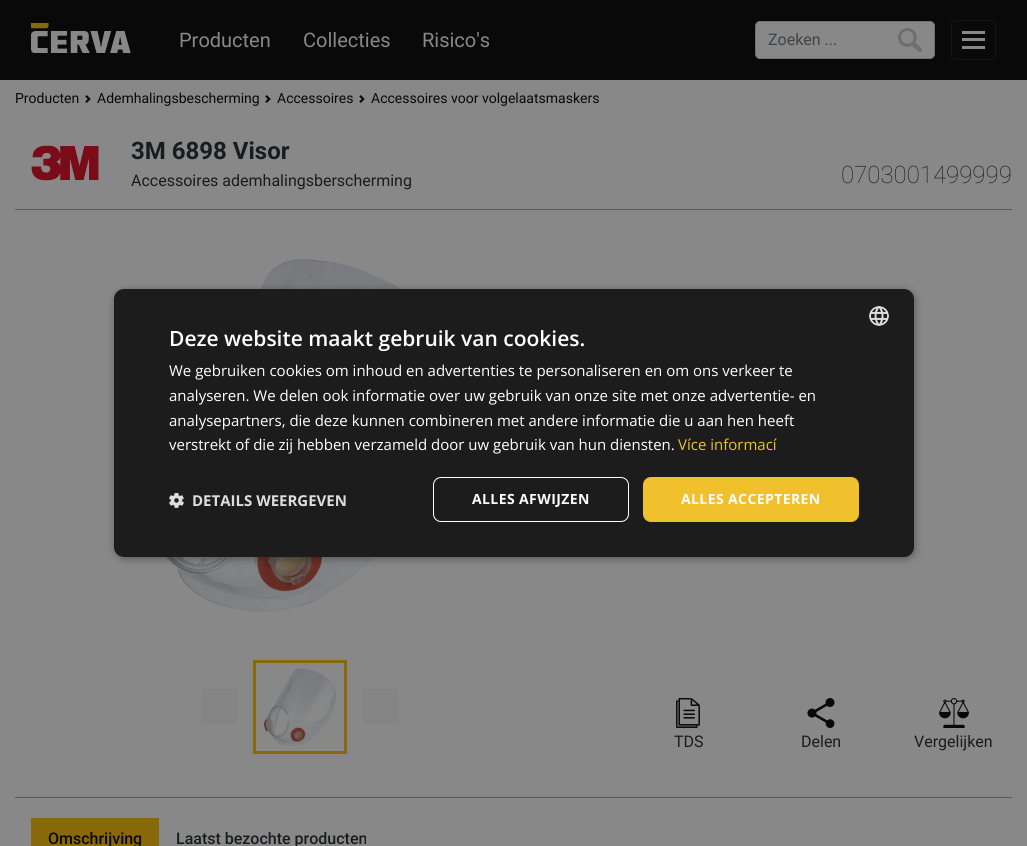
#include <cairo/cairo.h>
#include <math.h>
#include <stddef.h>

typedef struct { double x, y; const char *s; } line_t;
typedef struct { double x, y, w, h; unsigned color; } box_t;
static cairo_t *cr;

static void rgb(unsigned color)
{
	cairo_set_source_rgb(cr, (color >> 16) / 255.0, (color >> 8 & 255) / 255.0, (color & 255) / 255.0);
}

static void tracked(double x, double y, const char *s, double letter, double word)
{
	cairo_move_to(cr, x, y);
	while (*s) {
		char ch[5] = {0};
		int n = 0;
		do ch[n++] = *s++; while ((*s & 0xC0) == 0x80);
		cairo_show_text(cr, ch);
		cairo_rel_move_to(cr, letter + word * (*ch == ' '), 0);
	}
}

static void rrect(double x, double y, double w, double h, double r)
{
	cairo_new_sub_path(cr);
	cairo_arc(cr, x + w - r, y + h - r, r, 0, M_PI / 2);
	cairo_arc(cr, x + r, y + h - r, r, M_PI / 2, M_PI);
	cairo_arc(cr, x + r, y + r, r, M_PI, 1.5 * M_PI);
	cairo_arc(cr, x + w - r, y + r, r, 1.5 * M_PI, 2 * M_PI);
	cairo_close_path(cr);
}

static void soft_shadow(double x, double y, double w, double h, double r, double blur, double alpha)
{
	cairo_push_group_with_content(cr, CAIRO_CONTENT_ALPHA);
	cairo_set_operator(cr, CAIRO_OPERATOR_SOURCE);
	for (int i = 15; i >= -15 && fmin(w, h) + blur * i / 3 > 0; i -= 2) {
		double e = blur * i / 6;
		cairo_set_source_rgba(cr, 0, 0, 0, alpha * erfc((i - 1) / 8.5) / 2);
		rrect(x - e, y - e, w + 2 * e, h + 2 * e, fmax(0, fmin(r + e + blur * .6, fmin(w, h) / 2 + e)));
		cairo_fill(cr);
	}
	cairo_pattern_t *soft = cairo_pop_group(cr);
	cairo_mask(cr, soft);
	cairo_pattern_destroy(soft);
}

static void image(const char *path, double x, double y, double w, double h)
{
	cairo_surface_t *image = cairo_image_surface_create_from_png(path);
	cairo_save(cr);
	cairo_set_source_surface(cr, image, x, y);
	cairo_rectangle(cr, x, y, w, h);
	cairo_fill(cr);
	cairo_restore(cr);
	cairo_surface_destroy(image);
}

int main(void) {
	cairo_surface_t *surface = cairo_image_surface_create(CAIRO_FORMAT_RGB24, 1027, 846);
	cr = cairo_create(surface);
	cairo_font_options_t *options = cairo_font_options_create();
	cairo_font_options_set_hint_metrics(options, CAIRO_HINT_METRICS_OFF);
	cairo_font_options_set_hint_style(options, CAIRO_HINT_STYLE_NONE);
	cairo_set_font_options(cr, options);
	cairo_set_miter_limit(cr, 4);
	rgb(0x888888);
	cairo_paint(cr);
	rgb(0x090909);
	cairo_rectangle(cr, 0, 0, 1027, 80);
	cairo_fill(cr);
	image("img/1.png", 31, 23, 100, 30);
	rgb(0x888888);
	rrect(755.5, 21.5, 179, 37, 4.5);
	cairo_fill_preserve(cr);
	rgb(0x707376);
	cairo_set_line_width(cr, 1);
	cairo_stroke(cr);
	image("img/2.png", 898, 28, 24, 24);
	rrect(951.5, 20.5, 44, 39, 4.5);
	rgb(0x161616);
	cairo_stroke(cr);
	{
		static const box_t items[] = {
			{962, 31, 23, 3, 0x888888},
			{962, 38, 23, 3, 0x888888},
			{962, 46, 23, 3, 0x888888},
		};
		for (size_t i = 0; i < sizeof items / sizeof *items; i++) {
			rgb(items[i].color);
			cairo_rectangle(cr, items[i].x, items[i].y, items[i].w, items[i].h);
			cairo_fill(cr);
		}
	}
	image("img/3.png", 85, 95, 6, 8);
	image("img/3.png", 265, 95, 6, 8);
	image("img/3.png", 359, 95, 6, 8);
	rgb(0x585858);
	cairo_rectangle(cr, 15, 209, 997, 1);
	cairo_fill(cr);
	image("img/4.png", 31, 145, 68, 36);
	image("img/5.png", 164, 259, 238, 353);
	rgb(0x848484);
	cairo_rectangle(cr, 202, 689, 35, 35);
	cairo_fill(cr);
	cairo_rectangle(cr, 254.5, 661.5, 91, 91);
	rgb(0x886809);
	cairo_set_line_width(cr, 3);
	cairo_stroke(cr);
	image("img/6.png", 264, 668, 72, 78);
	rgb(0x848484);
	cairo_rectangle(cr, 363, 689, 35, 35);
	cairo_fill(cr);
	image("img/7.png", 676, 698, 24, 30);
	image("img/8.png", 807, 698, 28, 30);
	image("img/9.png", 939, 698, 30, 30);
	rgb(0x585858);
	cairo_rectangle(cr, 15, 797, 997, 1);
	cairo_fill(cr);
	rgb(0x886809);
	cairo_rectangle(cr, 31, 818, 128, 28);
	cairo_fill(cr);
	rgb(0x000000);
	soft_shadow(115, 291, 800, 268, 10, 4, 0.35);
	rgb(0x1c1c1c);
	rrect(114, 289, 800, 268, 10);
	cairo_fill(cr);
	image("img/10.png", 869, 306, 20, 20);
	image("img/11.png", 169, 493, 15, 15);
	rrect(433.5, 477.5, 195, 44, 7.5);
	rgb(0xffffff);
	cairo_set_line_width(cr, 1);
	cairo_stroke(cr);
	rgb(0xf1c02d);
	rrect(643, 477, 216, 45, 8);
	cairo_fill(cr);
	cairo_select_font_face(cr, "Roboto", CAIRO_FONT_SLANT_NORMAL, CAIRO_FONT_WEIGHT_NORMAL);
	cairo_set_font_size(cr, 20);
	rgb(0x888888);
	{
		static const line_t items[] = {
			{179, 47, "Producten"},
			{303, 47, "Collecties"},
			{422, 47, "Risico's"},
		};
		for (size_t i = 0; i < sizeof items / sizeof *items; i++) {
			cairo_move_to(cr, items[i].x, items[i].y);
			cairo_show_text(cr, items[i].s);
		}
	}
	cairo_set_font_size(cr, 16);
	rgb(0x3f4347);
	cairo_move_to(cr, 768, 45);
	cairo_show_text(cr, "Zoeken ...");
	cairo_set_font_size(cr, 14);
	rgb(0x090909);
	{
		static const line_t items[] = {
			{15, 103, "Producten"},
			{97, 103, "Ademhalingsbescherming"},
			{277, 103, "Accessoires"},
			{371, 103, "Accessoires voor volgelaatsmaskers"},
		};
		for (size_t i = 0; i < sizeof items / sizeof *items; i++) {
			cairo_move_to(cr, items[i].x, items[i].y);
			cairo_show_text(cr, items[i].s);
		}
	}
	cairo_select_font_face(cr, "Roboto", CAIRO_FONT_SLANT_NORMAL, CAIRO_FONT_WEIGHT_BOLD);
	cairo_set_font_size(cr, 24);
	rgb(0x191b1d);
	cairo_move_to(cr, 131, 159);
	cairo_show_text(cr, "3M 6898 Visor");
	cairo_select_font_face(cr, "Roboto", CAIRO_FONT_SLANT_NORMAL, CAIRO_FONT_WEIGHT_NORMAL);
	cairo_set_font_size(cr, 16);
	cairo_move_to(cr, 131, 186);
	cairo_show_text(cr, "Accessoires ademhalingsberscherming");
	cairo_select_font_face(cr, "Roboto Thin", CAIRO_FONT_SLANT_NORMAL, CAIRO_FONT_WEIGHT_NORMAL);
	cairo_set_font_size(cr, 24);
	cairo_move_to(cr, 841, 183);
	cairo_show_text(cr, "0703001499999");
	cairo_select_font_face(cr, "Roboto", CAIRO_FONT_SLANT_NORMAL, CAIRO_FONT_WEIGHT_NORMAL);
	cairo_set_font_size(cr, 16);
	{
		static const line_t items[] = {
			{674, 747, "TDS"},
			{801, 747, "Delen"},
			{914, 747, "Vergelijken"},
		};
		for (size_t i = 0; i < sizeof items / sizeof *items; i++) {
			cairo_move_to(cr, items[i].x, items[i].y);
			cairo_show_text(cr, items[i].s);
		}
	}
	cairo_select_font_face(cr, "Roboto Medium", CAIRO_FONT_SLANT_NORMAL, CAIRO_FONT_WEIGHT_NORMAL);
	rgb(0x090909);
	cairo_move_to(cr, 48, 844);
	cairo_show_text(cr, "Omschrijving");
	rgb(0x191b1d);
	cairo_move_to(cr, 176, 844);
	cairo_show_text(cr, "Laatst bezochte producten");
	cairo_select_font_face(cr, "Open Sans SemiBold", CAIRO_FONT_SLANT_NORMAL, CAIRO_FONT_WEIGHT_NORMAL);
	cairo_set_font_size(cr, 21);
	rgb(0xffffff);
	cairo_move_to(cr, 169, 346);
	cairo_show_text(cr, "Deze website maakt gebruik van cookies.");
	cairo_select_font_face(cr, "Open Sans", CAIRO_FONT_SLANT_NORMAL, CAIRO_FONT_WEIGHT_NORMAL);
	cairo_set_font_size(cr, 15);
	{
		static const line_t items[] = {
			{169, 376, "We gebruiken cookies om inhoud en advertenties te personaliseren en om ons verkeer te"},
			{169, 401, "analyseren. We delen ook informatie over uw gebruik van onze site met onze advertentie- en"},
			{169, 426, "analysepartners, die deze kunnen combineren met andere informatie die u aan hen heeft"},
			{169, 450, "verstrekt of die zij hebben verzameld door uw gebruik van hun diensten."},
		};
		for (size_t i = 0; i < sizeof items / sizeof *items; i++) {
			cairo_move_to(cr, items[i].x, items[i].y);
			cairo_show_text(cr, items[i].s);
		}
	}
	rgb(0xf1c02d);
	cairo_move_to(cr, 678, 450);
	cairo_show_text(cr, "Více informací");
	cairo_select_font_face(cr, "Open Sans", CAIRO_FONT_SLANT_NORMAL, CAIRO_FONT_WEIGHT_BOLD);
	rgb(0xdddddd);
	cairo_move_to(cr, 192, 506);
	cairo_show_text(cr, "DETAILS WEERGEVEN");
	cairo_set_font_size(cr, 14);
	rgb(0xffffff);
	tracked(472, 504, "ALLES AFWIJZEN", 0.4, 0);
	tracked(681, 504, "ALLES ACCEPTEREN", 0.4, 0);
	cairo_surface_write_to_png(surface, "page.png");
	cairo_font_options_destroy(options);
	cairo_destroy(cr);
	cairo_surface_destroy(surface);
	return 0;
}
